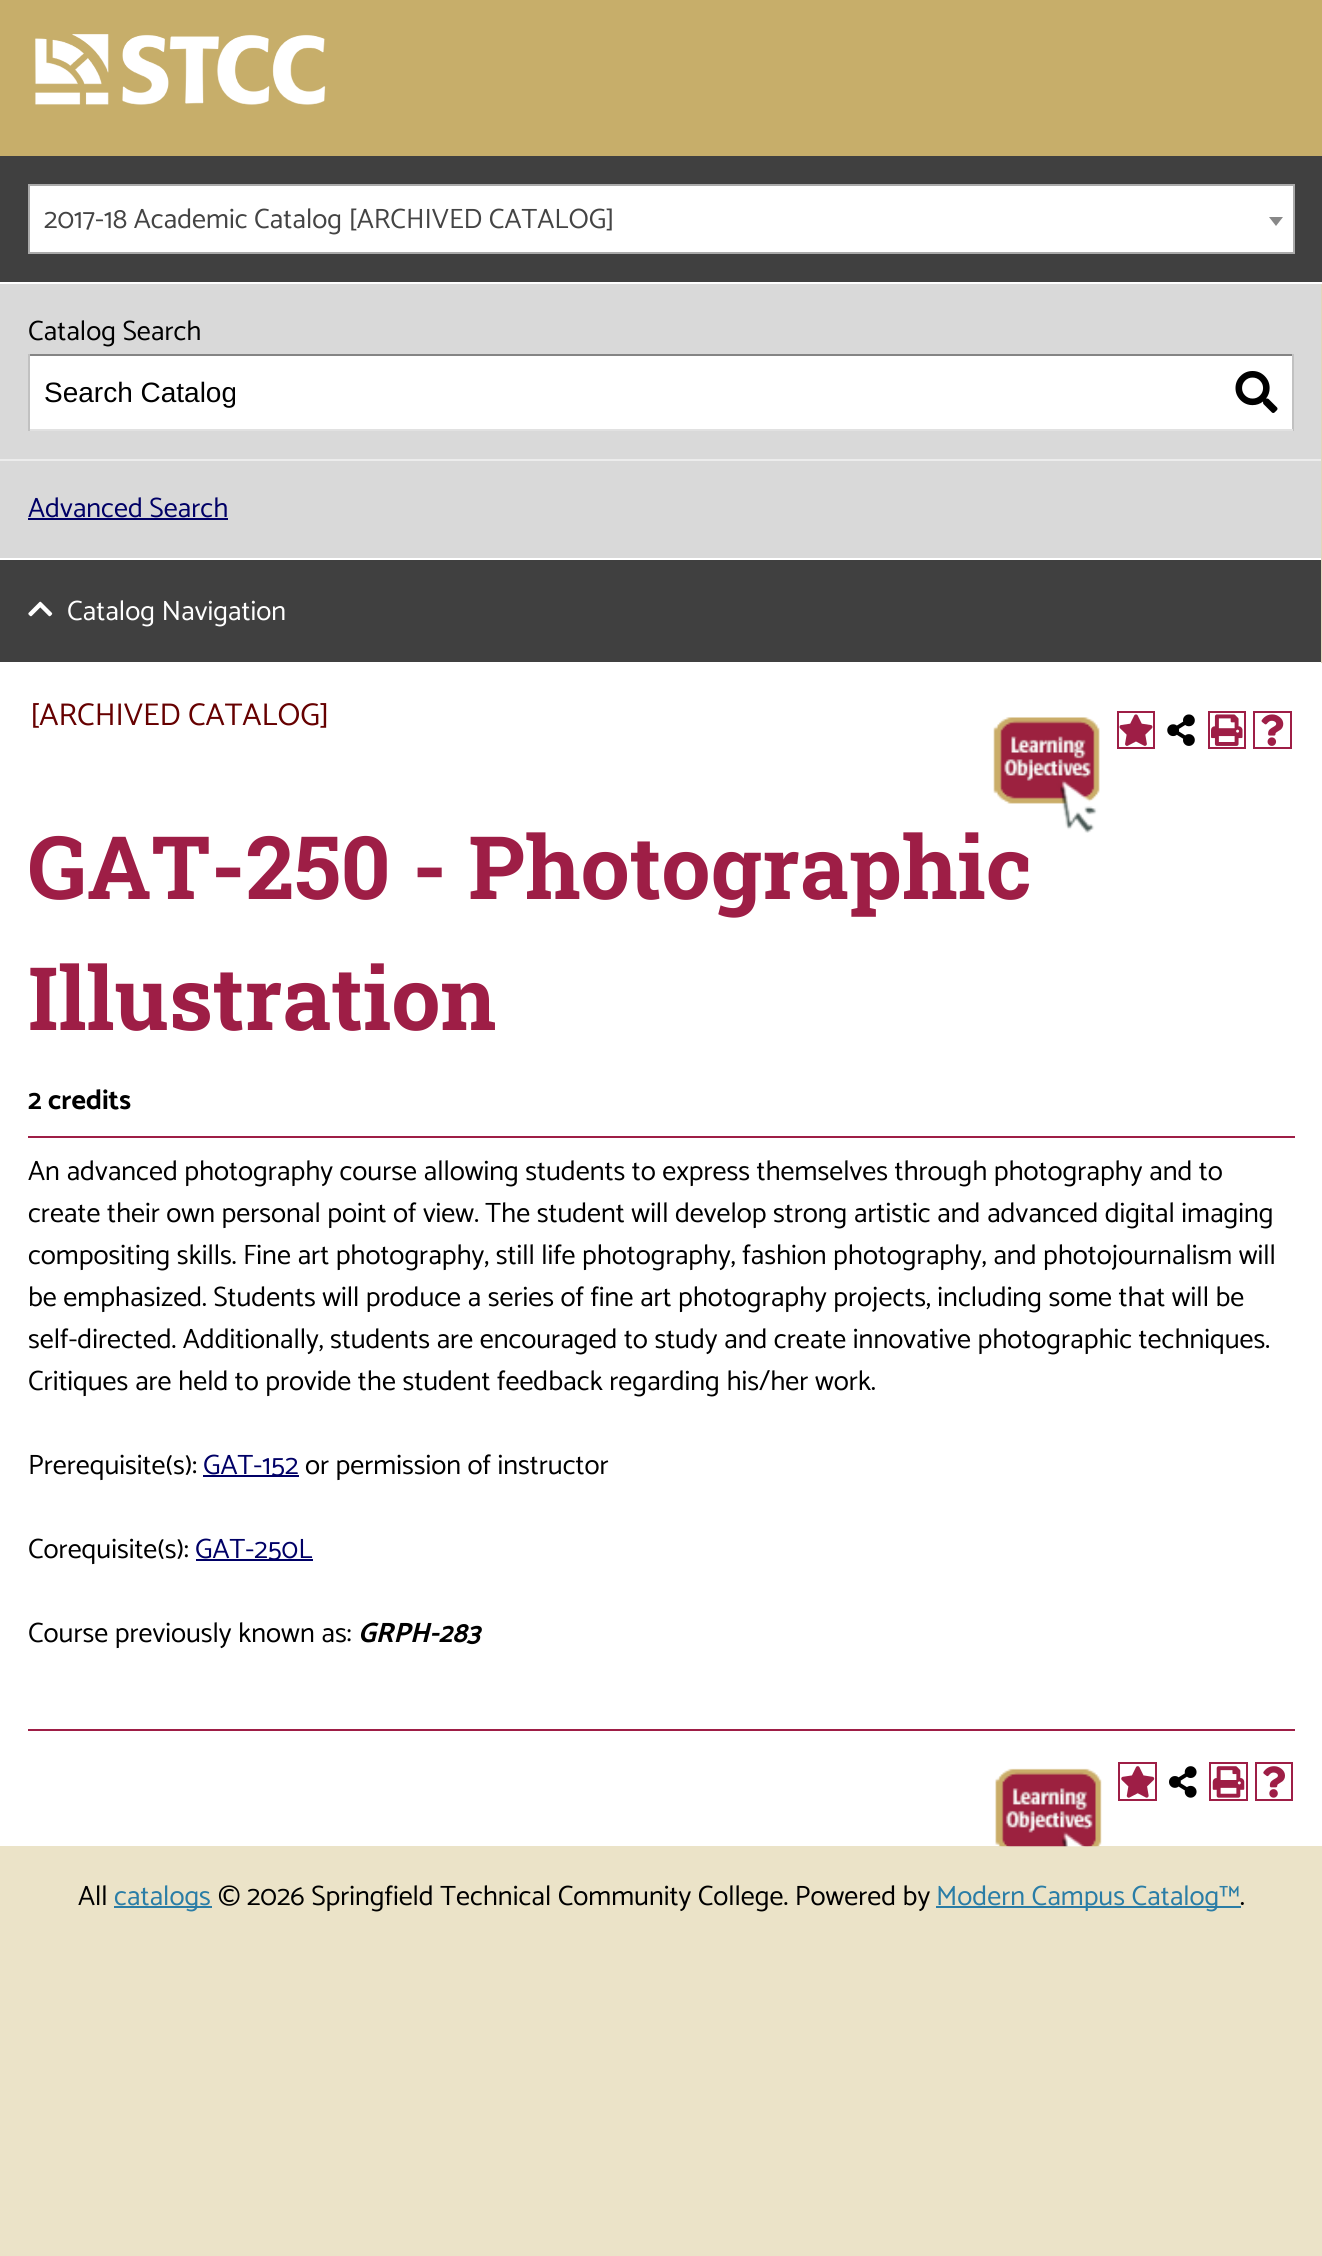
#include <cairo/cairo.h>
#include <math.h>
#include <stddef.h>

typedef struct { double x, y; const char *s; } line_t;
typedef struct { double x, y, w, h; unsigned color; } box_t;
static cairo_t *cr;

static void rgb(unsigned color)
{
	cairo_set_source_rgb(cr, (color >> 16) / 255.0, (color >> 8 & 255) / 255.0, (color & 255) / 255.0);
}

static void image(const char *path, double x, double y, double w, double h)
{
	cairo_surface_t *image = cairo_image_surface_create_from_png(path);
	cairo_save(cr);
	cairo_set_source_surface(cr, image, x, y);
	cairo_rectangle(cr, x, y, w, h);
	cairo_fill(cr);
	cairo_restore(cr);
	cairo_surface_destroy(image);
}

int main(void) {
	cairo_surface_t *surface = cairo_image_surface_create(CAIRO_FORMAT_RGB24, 1322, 2256);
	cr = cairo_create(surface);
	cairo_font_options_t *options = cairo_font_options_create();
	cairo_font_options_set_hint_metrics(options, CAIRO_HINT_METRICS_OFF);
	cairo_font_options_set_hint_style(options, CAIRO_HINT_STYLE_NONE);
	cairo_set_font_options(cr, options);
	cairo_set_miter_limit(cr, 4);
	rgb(0xebe3c8);
	cairo_paint(cr);
	rgb(0xffffff);
	cairo_rectangle(cr, 0, 663, 1322, 1183);
	cairo_fill(cr);
	rgb(0xc7ae6a);
	cairo_rectangle(cr, 0, 0, 1322, 156);
	cairo_fill(cr);
	image("img/1.png", 35, 34, 291, 71);
	rgb(0x404040);
	cairo_rectangle(cr, 0, 156, 1322, 126);
	cairo_fill(cr);
	rgb(0xffffff);
	cairo_rectangle(cr, 0, 282, 1322, 2);
	cairo_fill(cr);
	cairo_rectangle(cr, 29, 185, 1265, 68);
	cairo_fill_preserve(cr);
	rgb(0xaaaaaa);
	cairo_stroke(cr);
	rgb(0x888888);
	cairo_new_path(cr);
	cairo_move_to(cr, 1269, 217);
	cairo_line_to(cr, 1283, 217);
	cairo_line_to(cr, 1276, 226);
	cairo_close_path(cr);
	cairo_fill(cr);
	{
		static const box_t items[] = {
			{1321, 284, 1, 379, 0xe1d8bb},
			{0, 284, 1321, 274, 0xd9d9d9},
			{0, 558, 1321, 2, 0xffffff},
			{30, 356, 1262, 73, 0xffffff},
			{28, 354, 1265, 2, 0x848484},
			{1292, 354, 2, 77, 0xc1c1c1},
			{28, 429, 1265, 2, 0xe1e1e1},
			{28, 354, 2, 77, 0xc1c1c1},
		};
		for (size_t i = 0; i < sizeof items / sizeof *items; i++) {
			rgb(items[i].color);
			cairo_rectangle(cr, items[i].x, items[i].y, items[i].w, items[i].h);
			cairo_fill(cr);
		}
	}
	image("img/2.png", 1235, 371, 43, 42);
	{
		static const box_t items[] = {
			{0, 459, 1321, 2, 0xececec},
			{28, 518, 200, 2, 0x000066},
			{0, 560, 1321, 102, 0x404040},
			{0, 662, 1321, 1, 0xffffff},
		};
		for (size_t i = 0; i < sizeof items / sizeof *items; i++) {
			rgb(items[i].color);
			cairo_rectangle(cr, items[i].x, items[i].y, items[i].w, items[i].h);
			cairo_fill(cr);
		}
	}
	image("img/3.png", 28, 601, 25, 16);
	image("img/4.png", 993, 717, 107, 116);
	cairo_rectangle(cr, 1118, 712, 36, 36);
	rgb(0x9e1e46);
	cairo_stroke(cr);
	image("img/5.png", 1119, 714, 34, 32);
	image("img/6.png", 1167, 714, 28, 32);
	cairo_rectangle(cr, 1209, 712, 36, 36);
	cairo_stroke(cr);
	image("img/7.png", 1211, 714, 32, 32);
	cairo_rectangle(cr, 1254, 712, 37, 36);
	cairo_stroke(cr);
	image("img/8.png", 1261, 714, 23, 32);
	{
		static const box_t items[] = {
			{28, 1136, 1267, 2, 0x9e1e46},
			{203, 1475, 96, 2, 0x000066},
			{196, 1559, 117, 2, 0x000066},
			{28, 1729, 1267, 2, 0x9e1e46},
		};
		for (size_t i = 0; i < sizeof items / sizeof *items; i++) {
			rgb(items[i].color);
			cairo_rectangle(cr, items[i].x, items[i].y, items[i].w, items[i].h);
			cairo_fill(cr);
		}
	}
	image("img/9.png", 995, 1768, 107, 79);
	cairo_rectangle(cr, 1119, 1763, 37, 37);
	cairo_stroke(cr);
	image("img/10.png", 1121, 1766, 34, 32);
	image("img/11.png", 1169, 1766, 28, 32);
	cairo_rectangle(cr, 1210, 1763, 37, 37);
	cairo_stroke(cr);
	image("img/12.png", 1212, 1766, 33, 32);
	cairo_rectangle(cr, 1256, 1763, 36, 37);
	cairo_stroke(cr);
	image("img/13.png", 1263, 1766, 22, 32);
	rgb(0x2a7da6);
	cairo_rectangle(cr, 114, 1906, 98, 2);
	cairo_fill(cr);
	cairo_rectangle(cr, 936, 1906, 305, 2);
	cairo_fill(cr);
	cairo_select_font_face(cr, "Catamaran", CAIRO_FONT_SLANT_NORMAL, CAIRO_FONT_WEIGHT_NORMAL);
	cairo_set_font_size(cr, 28);
	rgb(0x444444);
	cairo_move_to(cr, 44, 228);
	cairo_show_text(cr, "2017-18 Academic Catalog [ARCHIVED CATALOG]");
	rgb(0x000000);
	cairo_move_to(cr, 28, 340);
	cairo_show_text(cr, "Catalog Search");
	cairo_select_font_face(cr, "Liberation Sans", CAIRO_FONT_SLANT_NORMAL, CAIRO_FONT_WEIGHT_NORMAL);
	cairo_move_to(cr, 44, 402);
	cairo_show_text(cr, "Search Catalog");
	cairo_select_font_face(cr, "Catamaran", CAIRO_FONT_SLANT_NORMAL, CAIRO_FONT_WEIGHT_NORMAL);
	rgb(0x000066);
	cairo_move_to(cr, 28, 517);
	cairo_show_text(cr, "Advanced Search");
	rgb(0xffffff);
	cairo_move_to(cr, 67, 620);
	cairo_show_text(cr, "Catalog Navigation");
	cairo_set_font_size(cr, 31.5);
	rgb(0x660000);
	cairo_move_to(cr, 30, 725);
	cairo_show_text(cr, "[ARCHIVED CATALOG]");
	cairo_select_font_face(cr, "Roboto Slab", CAIRO_FONT_SLANT_NORMAL, CAIRO_FONT_WEIGHT_BOLD);
	cairo_set_font_size(cr, 87.5);
	rgb(0x9e1e46);
	cairo_move_to(cr, 28, 899);
	cairo_show_text(cr, "GAT-250 - Photographic");
	cairo_move_to(cr, 28, 1030);
	cairo_show_text(cr, "Illustration");
	cairo_select_font_face(cr, "Catamaran", CAIRO_FONT_SLANT_NORMAL, CAIRO_FONT_WEIGHT_BOLD);
	cairo_set_font_size(cr, 28);
	rgb(0x000000);
	cairo_move_to(cr, 28, 1109);
	cairo_show_text(cr, "2 credits");
	cairo_select_font_face(cr, "Catamaran", CAIRO_FONT_SLANT_NORMAL, CAIRO_FONT_WEIGHT_NORMAL);
	{
		static const line_t items[] = {
			{28, 1180, "An advanced photography course allowing students to express themselves through photography and to"},
			{28, 1222, "create their own personal point of view. The student will develop strong artistic and advanced digital imaging"},
			{28, 1264, "compositing skills. Fine art photography, still life photography, fashion photography, and photojournalism will"},
			{28, 1306, "be emphasized. Students will produce a series of fine art photography projects, including some that will be"},
			{28, 1348, "self-directed. Additionally, students are encouraged to study and create innovative photographic techniques."},
			{28, 1390, "Critiques are held to provide the student feedback regarding his/her work."},
			{28, 1474, "Prerequisite(s):"},
		};
		for (size_t i = 0; i < sizeof items / sizeof *items; i++) {
			cairo_move_to(cr, items[i].x, items[i].y);
			cairo_show_text(cr, items[i].s);
		}
	}
	rgb(0x000066);
	cairo_move_to(cr, 203, 1474);
	cairo_show_text(cr, "GAT-152");
	rgb(0x000000);
	cairo_move_to(cr, 305, 1474);
	cairo_show_text(cr, "or permission of instructor");
	cairo_move_to(cr, 28, 1558);
	cairo_show_text(cr, "Corequisite(s):");
	rgb(0x000066);
	cairo_move_to(cr, 195, 1558);
	cairo_show_text(cr, "GAT-250L");
	rgb(0x000000);
	cairo_move_to(cr, 28, 1642);
	cairo_show_text(cr, "Course previously known as:");
	cairo_select_font_face(cr, "Catamaran", CAIRO_FONT_SLANT_ITALIC, CAIRO_FONT_WEIGHT_BOLD);
	cairo_move_to(cr, 358, 1642);
	cairo_show_text(cr, "GRPH-283");
	cairo_select_font_face(cr, "Catamaran", CAIRO_FONT_SLANT_NORMAL, CAIRO_FONT_WEIGHT_NORMAL);
	cairo_move_to(cr, 78, 1905);
	cairo_show_text(cr, "All");
	rgb(0x2a7da6);
	cairo_move_to(cr, 114, 1905);
	cairo_show_text(cr, "catalogs");
	rgb(0x000000);
	cairo_move_to(cr, 218, 1905);
	cairo_show_text(cr, "© 2026 Springfield Technical Community College. Powered by");
	rgb(0x2a7da6);
	cairo_move_to(cr, 936, 1905);
	cairo_show_text(cr, "Modern Campus Catalog™");
	rgb(0x000000);
	cairo_move_to(cr, 1240, 1905);
	cairo_show_text(cr, ".");
	cairo_surface_write_to_png(surface, "page.png");
	cairo_font_options_destroy(options);
	cairo_destroy(cr);
	cairo_surface_destroy(surface);
	return 0;
}
